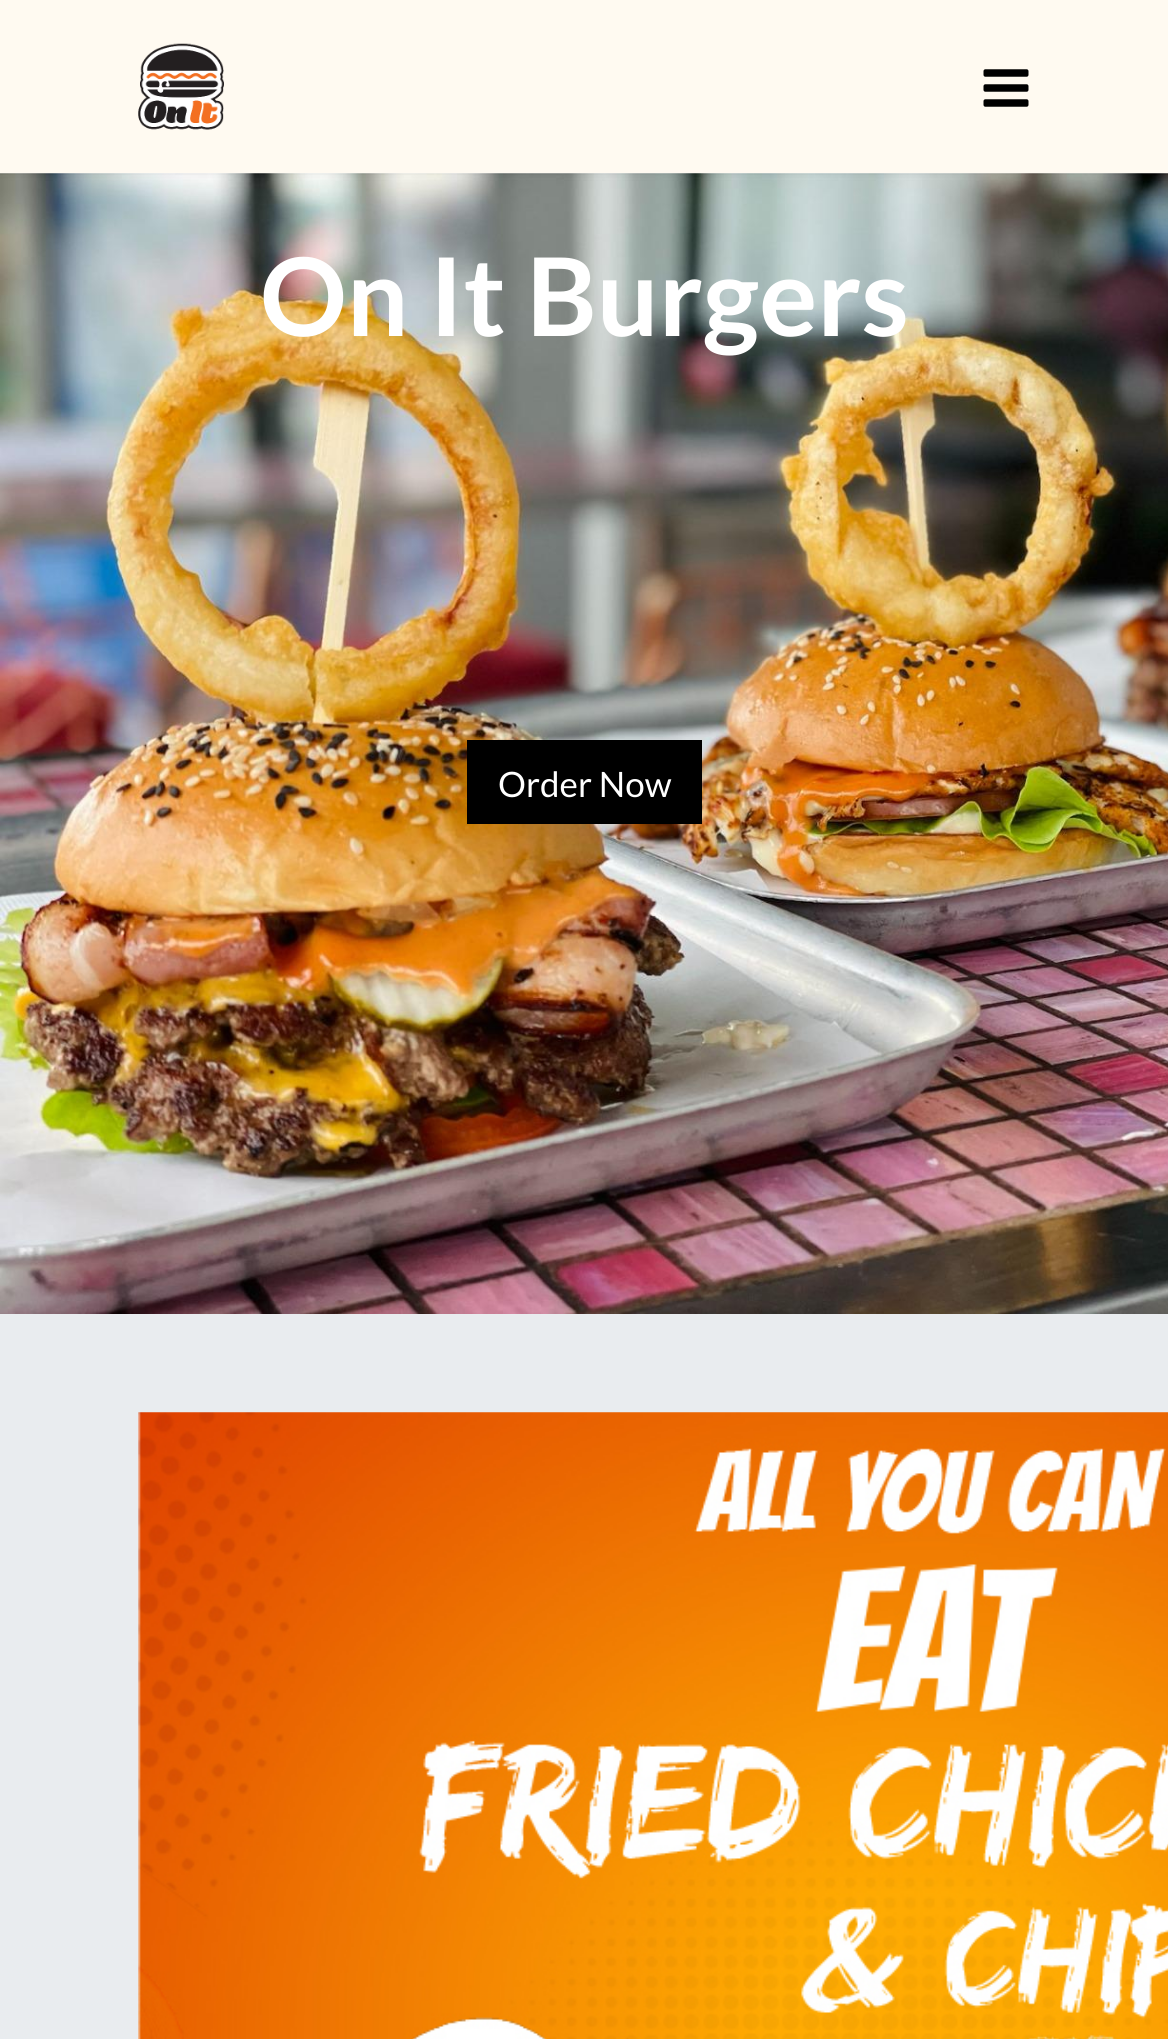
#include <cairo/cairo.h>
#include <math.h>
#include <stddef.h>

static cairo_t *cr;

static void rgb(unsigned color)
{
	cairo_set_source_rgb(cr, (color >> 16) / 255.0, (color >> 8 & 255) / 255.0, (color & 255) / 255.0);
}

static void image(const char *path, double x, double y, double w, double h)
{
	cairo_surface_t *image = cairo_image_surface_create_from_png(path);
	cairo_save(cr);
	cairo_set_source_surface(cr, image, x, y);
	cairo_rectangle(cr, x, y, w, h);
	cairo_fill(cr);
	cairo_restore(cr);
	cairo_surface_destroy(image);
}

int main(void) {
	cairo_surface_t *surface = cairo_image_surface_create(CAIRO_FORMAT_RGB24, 1168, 2039);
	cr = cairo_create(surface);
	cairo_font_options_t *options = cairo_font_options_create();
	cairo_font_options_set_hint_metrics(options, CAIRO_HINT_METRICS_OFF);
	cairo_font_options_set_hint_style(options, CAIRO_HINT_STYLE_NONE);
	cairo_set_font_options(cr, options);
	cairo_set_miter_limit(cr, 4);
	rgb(0xffffff);
	cairo_paint(cr);
	rgb(0xfffaf1);
	cairo_rectangle(cr, 0, 0, 1168, 173);
	cairo_fill(cr);
	image("img/1.png", 138, 43, 86, 87);
	image("img/2.png", 983, 69, 46, 38);
	image("img/3.png", 0, 173, 1168, 1141);
	rgb(0x000000);
	cairo_rectangle(cr, 467, 740, 235, 84);
	cairo_fill(cr);
	rgb(0xe9ecef);
	cairo_rectangle(cr, 0, 1314, 1168, 725);
	cairo_fill(cr);
	image("img/4.png", 138, 1412, 1030, 627);
	cairo_select_font_face(cr, "Lato", CAIRO_FONT_SLANT_NORMAL, CAIRO_FONT_WEIGHT_BOLD);
	cairo_set_font_size(cr, 108.5);
	rgb(0xffffff);
	cairo_move_to(cr, 260, 336);
	cairo_show_text(cr, "On It Burgers");
	cairo_select_font_face(cr, "Lato", CAIRO_FONT_SLANT_NORMAL, CAIRO_FONT_WEIGHT_NORMAL);
	cairo_set_font_size(cr, 35);
	cairo_move_to(cr, 498, 797);
	cairo_show_text(cr, "Order Now");
	cairo_surface_write_to_png(surface, "page.png");
	cairo_font_options_destroy(options);
	cairo_destroy(cr);
	cairo_surface_destroy(surface);
	return 0;
}
